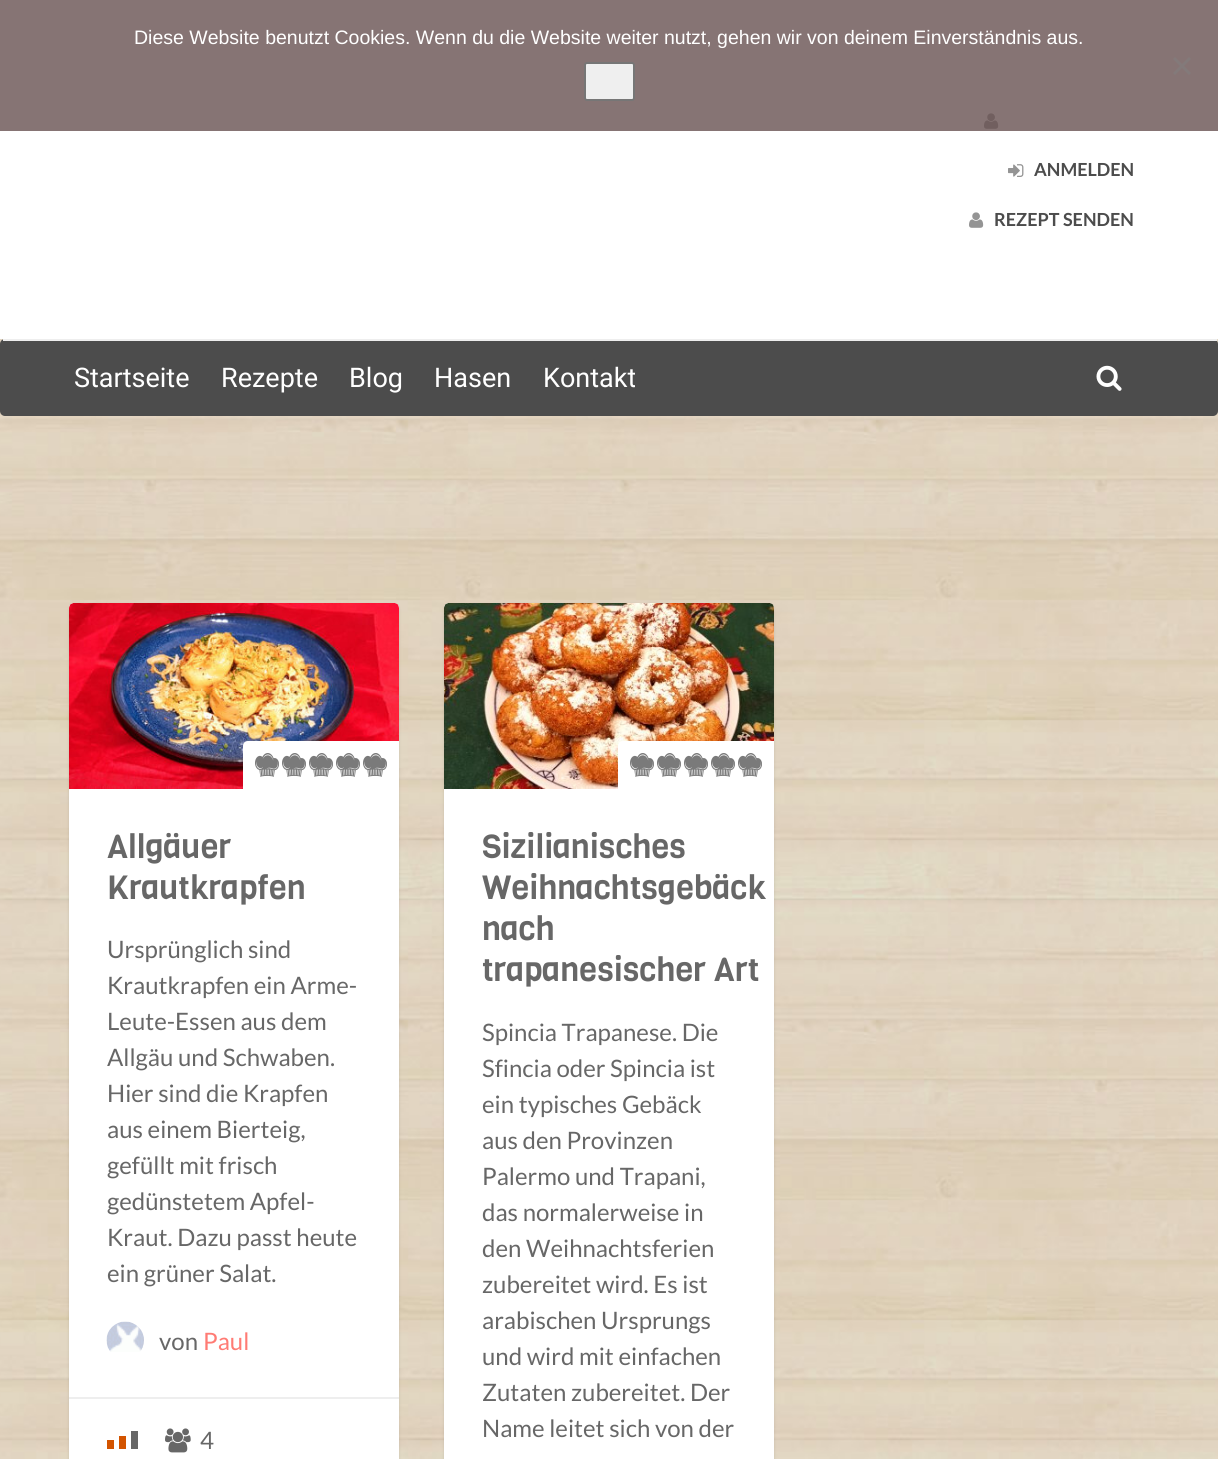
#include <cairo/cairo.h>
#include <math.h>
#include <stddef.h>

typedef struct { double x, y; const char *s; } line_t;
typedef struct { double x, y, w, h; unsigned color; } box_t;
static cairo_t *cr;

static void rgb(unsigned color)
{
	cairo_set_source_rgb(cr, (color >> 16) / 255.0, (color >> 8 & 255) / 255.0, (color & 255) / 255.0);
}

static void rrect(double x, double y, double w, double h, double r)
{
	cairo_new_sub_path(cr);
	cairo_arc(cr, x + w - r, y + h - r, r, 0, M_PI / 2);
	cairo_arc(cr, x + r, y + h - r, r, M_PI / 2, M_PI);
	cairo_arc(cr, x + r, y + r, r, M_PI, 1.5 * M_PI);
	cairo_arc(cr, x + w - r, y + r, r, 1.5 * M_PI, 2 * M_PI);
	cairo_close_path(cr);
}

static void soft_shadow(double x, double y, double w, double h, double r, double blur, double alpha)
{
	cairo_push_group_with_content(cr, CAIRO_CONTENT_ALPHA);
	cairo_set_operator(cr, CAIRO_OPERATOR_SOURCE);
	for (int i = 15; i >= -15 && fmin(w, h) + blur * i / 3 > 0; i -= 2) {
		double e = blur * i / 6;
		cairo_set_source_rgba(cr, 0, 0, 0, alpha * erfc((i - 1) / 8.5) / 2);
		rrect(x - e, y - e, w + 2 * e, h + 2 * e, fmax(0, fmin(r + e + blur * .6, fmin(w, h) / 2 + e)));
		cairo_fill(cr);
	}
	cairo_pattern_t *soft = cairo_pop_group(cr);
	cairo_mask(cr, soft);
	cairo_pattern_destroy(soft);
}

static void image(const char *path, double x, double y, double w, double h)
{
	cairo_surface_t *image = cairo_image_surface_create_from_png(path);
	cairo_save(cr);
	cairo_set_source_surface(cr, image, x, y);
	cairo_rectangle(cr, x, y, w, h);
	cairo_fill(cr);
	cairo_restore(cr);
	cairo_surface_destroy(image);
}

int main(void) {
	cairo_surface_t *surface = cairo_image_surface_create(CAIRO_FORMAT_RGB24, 1218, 1459);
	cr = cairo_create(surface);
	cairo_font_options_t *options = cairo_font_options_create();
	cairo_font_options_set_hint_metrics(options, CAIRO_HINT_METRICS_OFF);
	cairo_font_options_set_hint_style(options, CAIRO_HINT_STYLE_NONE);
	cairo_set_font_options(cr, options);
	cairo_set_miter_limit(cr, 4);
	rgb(0xffffff);
	cairo_paint(cr);
	image("img/1.png", 0, 339, 1218, 1120);
	image("img/2.png", 984, 113, 15, 16);
	cairo_set_source_rgba(cr, 0.408, 0.322, 0.322, 0.8);
	cairo_rectangle(cr, 0, 0, 1218, 131);
	cairo_fill(cr);
	rgb(0xefefef);
	rrect(585, 63, 49, 37, 2);
	cairo_fill_preserve(cr);
	rgb(0x767676);
	cairo_stroke(cr);
	rgb(0x837a7a);
	cairo_new_path(cr);
	cairo_move_to(cr, 1189, 57);
	cairo_line_to(cr, 1191, 59);
	cairo_line_to(cr, 1175, 75);
	cairo_line_to(cr, 1173, 73);
	cairo_close_path(cr);
	cairo_fill(cr);
	cairo_new_path(cr);
	cairo_move_to(cr, 1173, 59);
	cairo_line_to(cr, 1175, 57);
	cairo_line_to(cr, 1191, 73);
	cairo_line_to(cr, 1189, 75);
	cairo_close_path(cr);
	cairo_fill(cr);
	image("img/3.png", 1008, 164, 16, 13);
	image("img/2.png", 969, 212, 15, 16);
	rgb(0x4c4c4c);
	rrect(0, 339, 1218, 77, 5);
	cairo_fill(cr);
	rgb(0xeeeeee);
	cairo_rectangle(cr, 3, 339, 1214, 2);
	cairo_fill(cr);
	image("img/4.png", 1096, 365, 26, 26);
	rgb(0x000000);
	soft_shadow(69, 605, 330, 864, 5, 1.5, 0.1);
	rgb(0xffffff);
	rrect(69, 603, 330, 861, 5);
	cairo_fill(cr);
	image("img/5.png", 69, 603, 330, 186);
	cairo_new_path(cr);
	cairo_move_to(cr, 248, 741);
	cairo_line_to(cr, 399, 741);
	cairo_line_to(cr, 399, 789);
	cairo_line_to(cr, 243, 789);
	cairo_line_to(cr, 243, 746);
	cairo_curve_to(cr, 243, 743, 245, 741, 248, 741);
	cairo_close_path(cr);
	cairo_fill(cr);
	image("img/6.png", 255, 753, 24, 24);
	image("img/6.png", 282, 753, 24, 24);
	image("img/6.png", 309, 753, 24, 24);
	image("img/6.png", 336, 753, 24, 24);
	image("img/6.png", 363, 753, 24, 24);
	image("img/7.png", 106, 1321, 38, 31);
	{
		static const box_t items[] = {
			{69, 1397, 330, 2, 0xeeeeee},
			{107, 1440, 7, 9, 0xd35400},
			{119, 1436, 7, 13, 0xd35400},
			{131, 1431, 7, 18, 0x676767},
		};
		for (size_t i = 0; i < sizeof items / sizeof *items; i++) {
			rgb(items[i].color);
			cairo_rectangle(cr, items[i].x, items[i].y, items[i].w, items[i].h);
			cairo_fill(cr);
		}
	}
	image("img/8.png", 165, 1428, 26, 25);
	rgb(0x000000);
	soft_shadow(444, 605, 330, 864, 5, 1.5, 0.1);
	rgb(0xffffff);
	rrect(444, 603, 330, 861, 5);
	cairo_fill(cr);
	image("img/9.png", 444, 603, 330, 186);
	cairo_new_path(cr);
	cairo_move_to(cr, 623, 741);
	cairo_line_to(cr, 774, 741);
	cairo_line_to(cr, 774, 789);
	cairo_line_to(cr, 618, 789);
	cairo_line_to(cr, 618, 746);
	cairo_curve_to(cr, 618, 743, 620, 741, 623, 741);
	cairo_close_path(cr);
	cairo_fill(cr);
	image("img/6.png", 630, 753, 24, 24);
	image("img/6.png", 657, 753, 24, 24);
	image("img/6.png", 684, 753, 24, 24);
	image("img/6.png", 711, 753, 24, 24);
	image("img/6.png", 738, 753, 24, 24);
	cairo_select_font_face(cr, "Liberation Sans", CAIRO_FONT_SLANT_NORMAL, CAIRO_FONT_WEIGHT_NORMAL);
	cairo_set_font_size(cr, 19.5);
	cairo_move_to(cr, 134, 44);
	cairo_show_text(cr, "Diese Website benutzt Cookies. Wenn du die Website weiter nutzt, gehen wir von deinem Einverständnis aus.");
	cairo_select_font_face(cr, "Lato", CAIRO_FONT_SLANT_NORMAL, CAIRO_FONT_WEIGHT_BOLD);
	cairo_set_font_size(cr, 18);
	rgb(0x4c4c4c);
	cairo_move_to(cr, 1034, 176);
	cairo_show_text(cr, "ANMELDEN");
	cairo_move_to(cr, 994, 226);
	cairo_show_text(cr, "REZEPT SENDEN");
	cairo_select_font_face(cr, "Roboto", CAIRO_FONT_SLANT_NORMAL, CAIRO_FONT_WEIGHT_NORMAL);
	cairo_set_font_size(cr, 27);
	rgb(0xffffff);
	{
		static const line_t items[] = {
			{74, 387, "Startseite"},
			{221, 387, "Rezepte"},
			{349, 387, "Blog"},
			{434, 387, "Hasen"},
			{543, 387, "Kontakt"},
		};
		for (size_t i = 0; i < sizeof items / sizeof *items; i++) {
			cairo_move_to(cr, items[i].x, items[i].y);
			cairo_show_text(cr, items[i].s);
		}
	}
	cairo_select_font_face(cr, "Viga", CAIRO_FONT_SLANT_NORMAL, CAIRO_FONT_WEIGHT_NORMAL);
	cairo_set_font_size(cr, 33);
	rgb(0x676767);
	cairo_move_to(cr, 107, 858);
	cairo_show_text(cr, "Allgäuer");
	cairo_move_to(cr, 107, 899);
	cairo_show_text(cr, "Krautkrapfen");
	cairo_select_font_face(cr, "Lato", CAIRO_FONT_SLANT_NORMAL, CAIRO_FONT_WEIGHT_NORMAL);
	cairo_set_font_size(cr, 24);
	{
		static const line_t items[] = {
			{107, 958, "Ursprünglich sind"},
			{107, 994, "Krautkrapfen ein Arme-"},
			{107, 1030, "Leute-Essen aus dem"},
			{107, 1066, "Allgäu und Schwaben."},
			{107, 1102, "Hier sind die Krapfen"},
			{107, 1138, "aus einem Bierteig,"},
			{107, 1174, "gefüllt mit frisch"},
			{107, 1210, "gedünstetem Apfel-"},
			{107, 1246, "Kraut. Dazu passt heute"},
			{107, 1282, "ein grüner Salat."},
			{159, 1350, "von"},
		};
		for (size_t i = 0; i < sizeof items / sizeof *items; i++) {
			cairo_move_to(cr, items[i].x, items[i].y);
			cairo_show_text(cr, items[i].s);
		}
	}
	rgb(0xff7b74);
	cairo_move_to(cr, 203, 1350);
	cairo_show_text(cr, "Paul");
	rgb(0x676767);
	cairo_move_to(cr, 200, 1449);
	cairo_show_text(cr, "4");
	cairo_select_font_face(cr, "Viga", CAIRO_FONT_SLANT_NORMAL, CAIRO_FONT_WEIGHT_NORMAL);
	cairo_set_font_size(cr, 33);
	{
		static const line_t items[] = {
			{482, 858, "Sizilianisches"},
			{482, 899, "Weihnachtsgebäck"},
			{482, 940, "nach"},
			{482, 981, "trapanesischer Art"},
		};
		for (size_t i = 0; i < sizeof items / sizeof *items; i++) {
			cairo_move_to(cr, items[i].x, items[i].y);
			cairo_show_text(cr, items[i].s);
		}
	}
	cairo_select_font_face(cr, "Lato", CAIRO_FONT_SLANT_NORMAL, CAIRO_FONT_WEIGHT_NORMAL);
	cairo_set_font_size(cr, 24);
	{
		static const line_t items[] = {
			{482, 1041, "Spincia Trapanese. Die"},
			{482, 1077, "Sfincia oder Spincia ist"},
			{482, 1113, "ein typisches Gebäck"},
			{482, 1149, "aus den Provinzen"},
			{482, 1185, "Palermo und Trapani,"},
			{482, 1221, "das normalerweise in"},
			{482, 1257, "den Weihnachtsferien"},
			{482, 1293, "zubereitet wird. Es ist"},
			{482, 1329, "arabischen Ursprungs"},
			{482, 1365, "und wird mit einfachen"},
			{482, 1401, "Zutaten zubereitet. Der"},
			{482, 1437, "Name leitet sich von der"},
		};
		for (size_t i = 0; i < sizeof items / sizeof *items; i++) {
			cairo_move_to(cr, items[i].x, items[i].y);
			cairo_show_text(cr, items[i].s);
		}
	}
	cairo_surface_write_to_png(surface, "page.png");
	cairo_font_options_destroy(options);
	cairo_destroy(cr);
	cairo_surface_destroy(surface);
	return 0;
}
